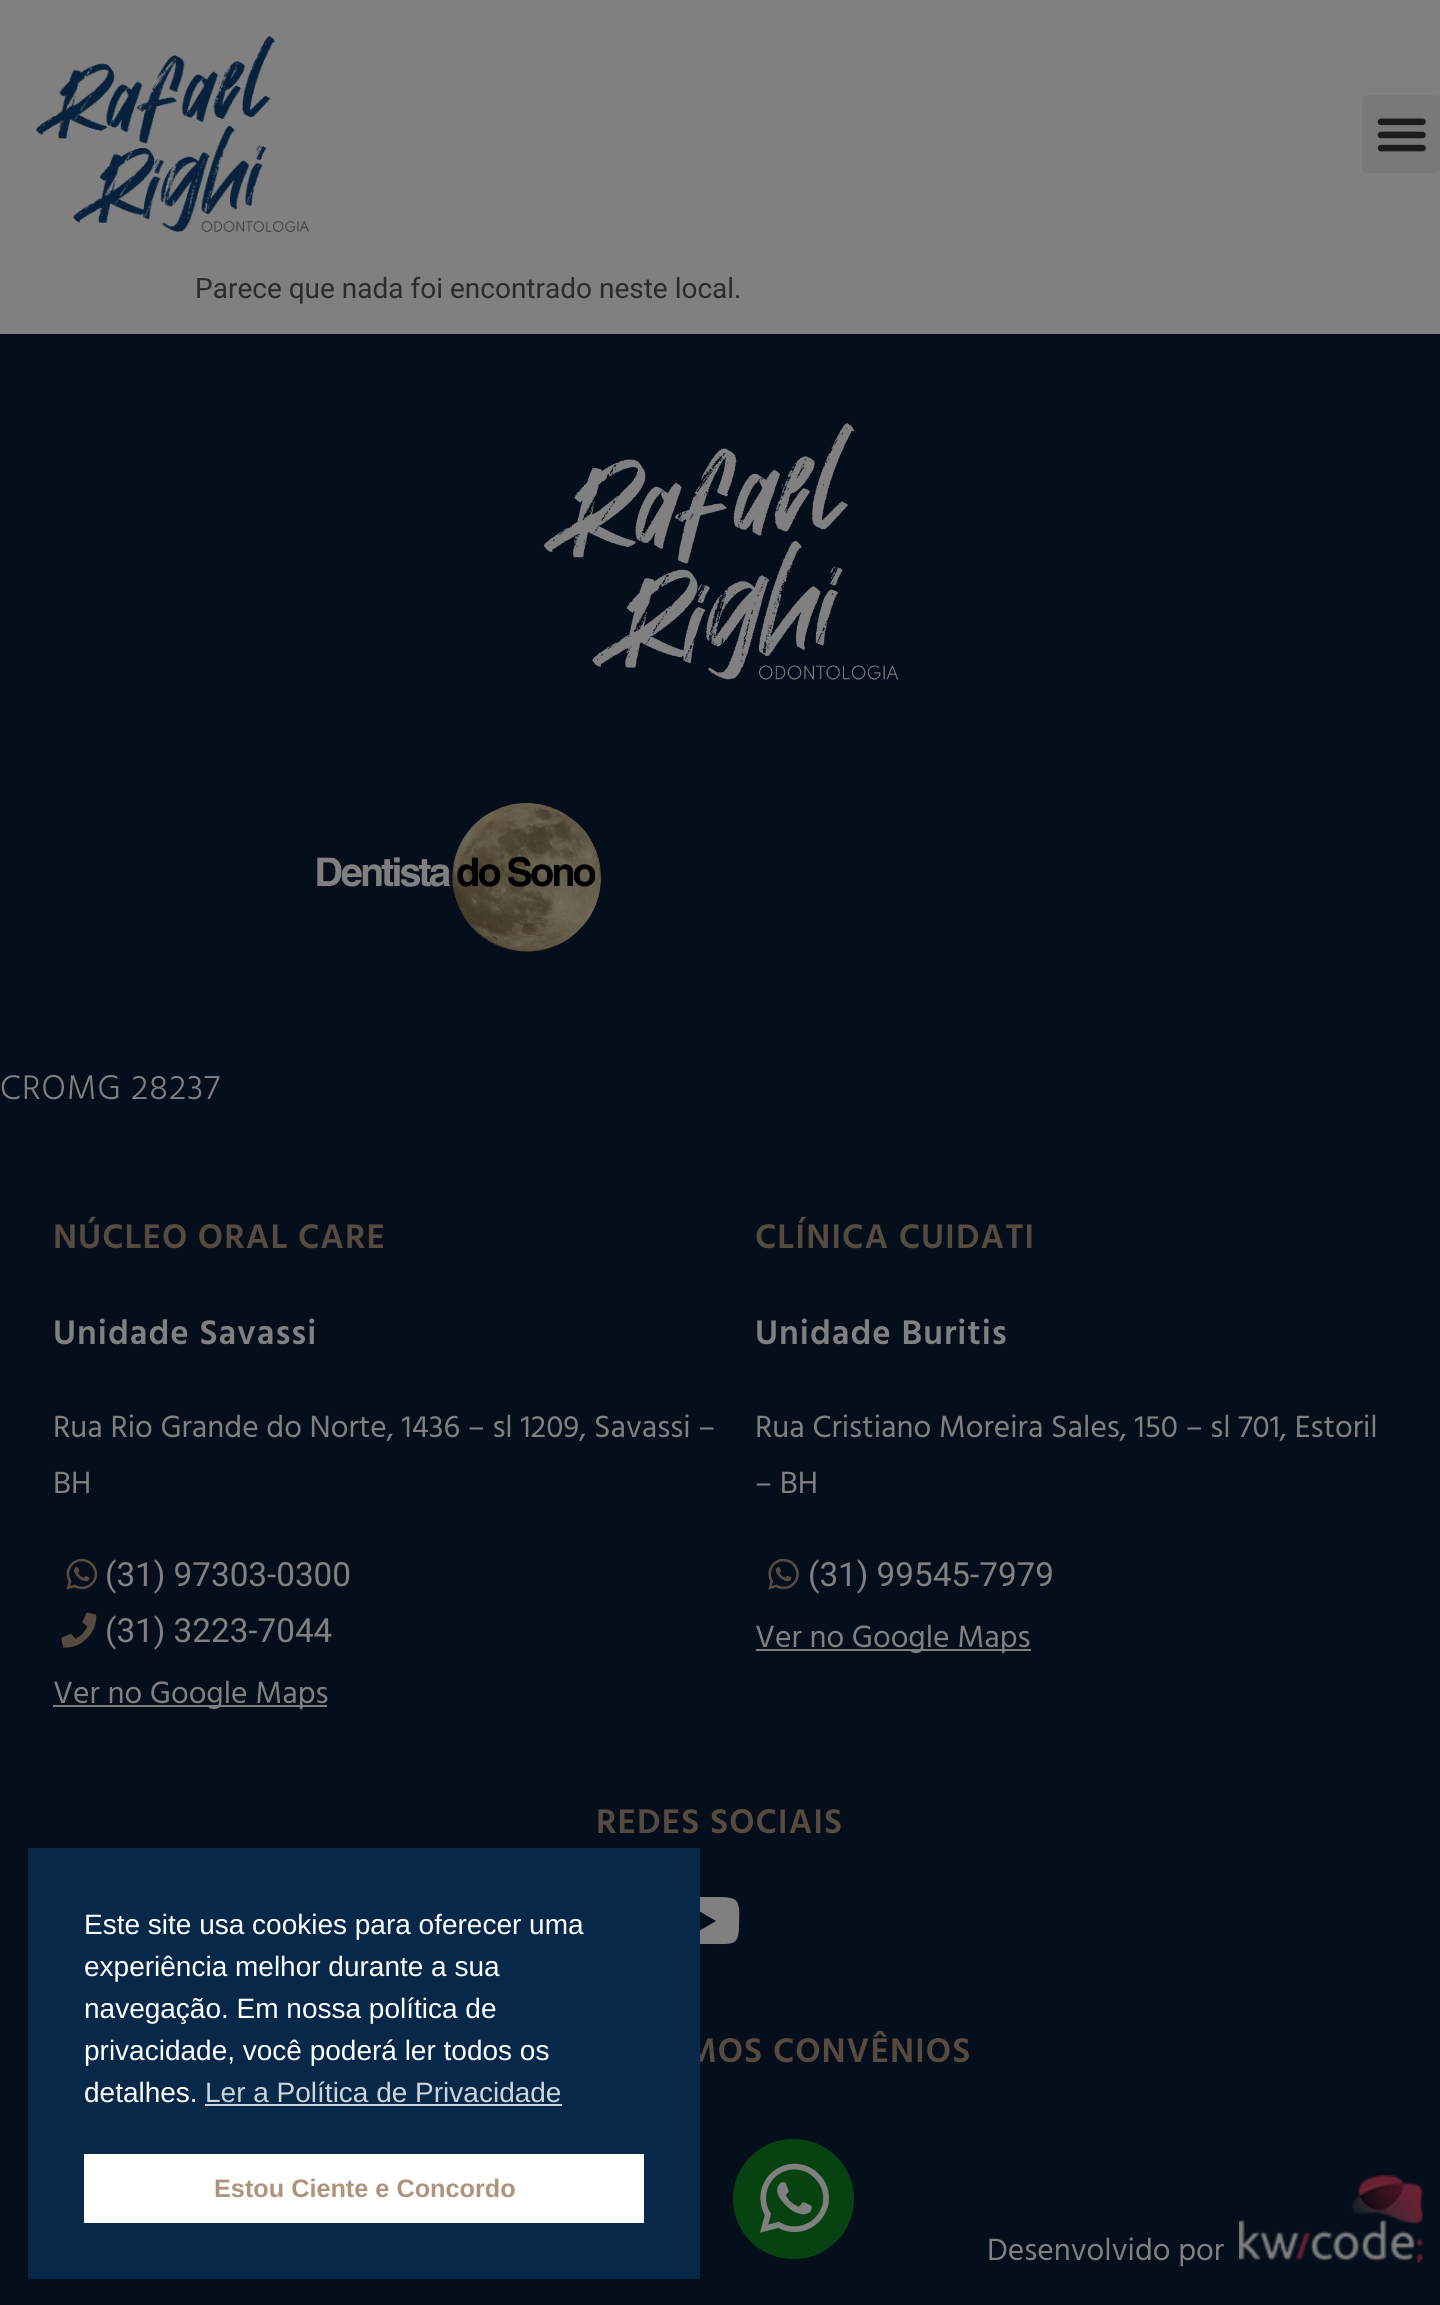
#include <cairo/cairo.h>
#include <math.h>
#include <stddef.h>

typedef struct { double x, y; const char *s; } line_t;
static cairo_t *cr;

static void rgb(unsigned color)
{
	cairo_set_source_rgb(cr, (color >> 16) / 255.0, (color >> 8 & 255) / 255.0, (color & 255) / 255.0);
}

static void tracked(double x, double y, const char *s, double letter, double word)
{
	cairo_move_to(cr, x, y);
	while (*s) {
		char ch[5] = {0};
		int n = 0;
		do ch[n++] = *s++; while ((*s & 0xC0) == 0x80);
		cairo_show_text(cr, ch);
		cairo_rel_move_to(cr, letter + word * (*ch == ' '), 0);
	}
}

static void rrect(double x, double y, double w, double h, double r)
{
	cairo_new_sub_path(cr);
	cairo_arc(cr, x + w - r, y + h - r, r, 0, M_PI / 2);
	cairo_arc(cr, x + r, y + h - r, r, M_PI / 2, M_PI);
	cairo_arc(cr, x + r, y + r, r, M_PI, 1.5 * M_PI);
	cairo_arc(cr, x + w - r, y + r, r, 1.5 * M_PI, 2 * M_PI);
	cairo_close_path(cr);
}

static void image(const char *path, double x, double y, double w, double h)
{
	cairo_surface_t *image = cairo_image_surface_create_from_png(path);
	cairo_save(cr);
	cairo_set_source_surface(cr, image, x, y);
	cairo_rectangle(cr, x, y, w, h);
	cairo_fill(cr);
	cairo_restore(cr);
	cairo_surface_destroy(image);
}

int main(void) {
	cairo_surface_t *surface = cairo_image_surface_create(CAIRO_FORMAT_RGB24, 1440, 2305);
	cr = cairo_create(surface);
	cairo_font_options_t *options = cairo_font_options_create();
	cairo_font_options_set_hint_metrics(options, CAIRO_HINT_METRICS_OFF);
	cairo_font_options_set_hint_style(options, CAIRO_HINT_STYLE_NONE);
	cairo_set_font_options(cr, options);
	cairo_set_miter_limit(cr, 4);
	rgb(0x808080);
	cairo_paint(cr);
	image("img/1.png", 36, 36, 273, 196);
	rgb(0x797979);
	rrect(1362, 95, 78, 78, 5);
	cairo_fill(cr);
	image("img/2.png", 1377, 118, 49, 34);
	rgb(0x050f1c);
	cairo_rectangle(cr, 0, 334, 1440, 1971);
	cairo_fill(cr);
	image("img/3.png", 543, 423, 356, 257);
	image("img/4.png", 317, 802, 284, 150);
	rgb(0x074310);
	rrect(733, 2139, 121, 120, 60);
	cairo_fill(cr);
	image("img/5.png", 760, 2163, 69, 70);
	image("img/6.png", 66, 1558, 32, 32);
	image("img/7.png", 61, 1612, 36, 36);
	rgb(0x808080);
	cairo_rectangle(cr, 53, 1705, 274, 2);
	cairo_fill(cr);
	image("img/8.png", 768, 1558, 31, 32);
	cairo_rectangle(cr, 756, 1649, 275, 2);
	cairo_fill(cr);
	cairo_new_path(cr);
	cairo_move_to(cr, 738, 1904);
	cairo_curve_to(cr, 740, 1911, 739, 1918, 739, 1925);
	cairo_curve_to(cr, 739, 1946, 733, 1944, 713, 1944);
	cairo_line_to(cr, 696, 1944);
	cairo_curve_to(cr, 690, 1944, 676, 1946, 673, 1937);
	cairo_curve_to(cr, 672, 1930, 672, 1923, 672, 1916);
	cairo_curve_to(cr, 672, 1905, 673, 1899, 685, 1898);
	cairo_line_to(cr, 700, 1897);
	cairo_line_to(cr, 720, 1897);
	cairo_curve_to(cr, 726, 1897, 736, 1897, 738, 1904);
	cairo_close_path(cr);
	cairo_move_to(cr, 699, 1931);
	cairo_line_to(cr, 716, 1921);
	cairo_line_to(cr, 699, 1911);
	cairo_close_path(cr);
	cairo_fill(cr);
	image("img/9.png", 1239, 2175, 184, 88);
	cairo_select_font_face(cr, "Roboto", CAIRO_FONT_SLANT_NORMAL, CAIRO_FONT_WEIGHT_NORMAL);
	cairo_set_font_size(cr, 28);
	rgb(0x2a2b31);
	cairo_move_to(cr, 195, 298);
	cairo_show_text(cr, "Parece que nada foi encontrado neste local.");
	cairo_select_font_face(cr, "Hind Light", CAIRO_FONT_SLANT_NORMAL, CAIRO_FONT_WEIGHT_NORMAL);
	cairo_set_font_size(cr, 35);
	rgb(0x808080);
	tracked(0, 1099, "CROMG 28237", 1, 0);
	cairo_select_font_face(cr, "Hind SemiBold", CAIRO_FONT_SLANT_NORMAL, CAIRO_FONT_WEIGHT_NORMAL);
	rgb(0x574a3e);
	tracked(53, 1248, "NÚCLEO ORAL CARE", 1, 0);
	rgb(0x808080);
	tracked(53, 1344, "Unidade Savassi", 1, 0);
	cairo_select_font_face(cr, "Hind", CAIRO_FONT_SLANT_NORMAL, CAIRO_FONT_WEIGHT_NORMAL);
	cairo_set_font_size(cr, 31.5);
	cairo_move_to(cr, 53, 1437);
	cairo_show_text(cr, "Rua Rio Grande do Norte, 1436 – sl 1209, Savassi –");
	cairo_move_to(cr, 53, 1493);
	cairo_show_text(cr, "BH");
	cairo_select_font_face(cr, "Roboto", CAIRO_FONT_SLANT_NORMAL, CAIRO_FONT_WEIGHT_NORMAL);
	cairo_set_font_size(cr, 33.25);
	cairo_move_to(cr, 105, 1586);
	cairo_show_text(cr, "(31) 97303-0300");
	cairo_move_to(cr, 105, 1642);
	cairo_show_text(cr, "(31) 3223-7044");
	cairo_select_font_face(cr, "Hind", CAIRO_FONT_SLANT_NORMAL, CAIRO_FONT_WEIGHT_NORMAL);
	cairo_set_font_size(cr, 31.5);
	cairo_move_to(cr, 53, 1703);
	cairo_show_text(cr, "Ver no Google Maps");
	cairo_select_font_face(cr, "Hind SemiBold", CAIRO_FONT_SLANT_NORMAL, CAIRO_FONT_WEIGHT_NORMAL);
	cairo_set_font_size(cr, 35);
	rgb(0x574a3e);
	tracked(755, 1248, "CLÍNICA CUIDATI", 1, 0);
	rgb(0x808080);
	tracked(755, 1344, "Unidade Buritis", 1, 0);
	cairo_select_font_face(cr, "Hind", CAIRO_FONT_SLANT_NORMAL, CAIRO_FONT_WEIGHT_NORMAL);
	cairo_set_font_size(cr, 31.5);
	cairo_move_to(cr, 755, 1437);
	cairo_show_text(cr, "Rua Cristiano Moreira Sales, 150 – sl 701, Estoril");
	cairo_move_to(cr, 755, 1493);
	cairo_show_text(cr, "– BH");
	cairo_select_font_face(cr, "Roboto", CAIRO_FONT_SLANT_NORMAL, CAIRO_FONT_WEIGHT_NORMAL);
	cairo_set_font_size(cr, 33.25);
	cairo_move_to(cr, 808, 1586);
	cairo_show_text(cr, "(31) 99545-7979");
	cairo_select_font_face(cr, "Hind", CAIRO_FONT_SLANT_NORMAL, CAIRO_FONT_WEIGHT_NORMAL);
	cairo_set_font_size(cr, 31.5);
	cairo_move_to(cr, 755, 1647);
	cairo_show_text(cr, "Ver no Google Maps");
	cairo_select_font_face(cr, "Hind SemiBold", CAIRO_FONT_SLANT_NORMAL, CAIRO_FONT_WEIGHT_NORMAL);
	cairo_set_font_size(cr, 35);
	rgb(0x574a3e);
	tracked(596, 1833, "REDES SOCIAIS", 1, 0);
	tracked(686, 2062, "MOS CONVÊNIOS", 1, 0);
	cairo_select_font_face(cr, "Hind", CAIRO_FONT_SLANT_NORMAL, CAIRO_FONT_WEIGHT_NORMAL);
	cairo_set_font_size(cr, 31.5);
	rgb(0x808080);
	cairo_move_to(cr, 987, 2260);
	cairo_show_text(cr, "Desenvolvido por");
	rgb(0x072849);
	cairo_rectangle(cr, 28, 1848, 672, 431);
	cairo_fill(cr);
	cairo_select_font_face(cr, "Liberation Sans", CAIRO_FONT_SLANT_NORMAL, CAIRO_FONT_WEIGHT_NORMAL);
	cairo_set_font_size(cr, 28);
	rgb(0xffffff);
	{
		static const line_t items[] = {
			{84, 1934, "Este site usa cookies para oferecer uma"},
			{84, 1976, "experiência melhor durante a sua"},
			{84, 2018, "navegação. Em nossa política de"},
			{84, 2060, "privacidade, você poderá ler todos os"},
			{84, 2102, "detalhes."},
		};
		for (size_t i = 0; i < sizeof items / sizeof *items; i++) {
			cairo_move_to(cr, items[i].x, items[i].y);
			cairo_show_text(cr, items[i].s);
		}
	}
	rgb(0xcdd4db);
	cairo_move_to(cr, 205, 2102);
	cairo_show_text(cr, "Ler a Política de Privacidade");
	cairo_rectangle(cr, 205, 2104, 357, 2);
	cairo_fill(cr);
	rgb(0xffffff);
	cairo_rectangle(cr, 84, 2154, 560, 69);
	cairo_fill(cr);
	cairo_select_font_face(cr, "Liberation Sans", CAIRO_FONT_SLANT_NORMAL, CAIRO_FONT_WEIGHT_BOLD);
	cairo_set_font_size(cr, 25.25);
	rgb(0xaf947c);
	cairo_move_to(cr, 214, 2197);
	cairo_show_text(cr, "Estou Ciente e Concordo");
	cairo_surface_write_to_png(surface, "page.png");
	cairo_font_options_destroy(options);
	cairo_destroy(cr);
	cairo_surface_destroy(surface);
	return 0;
}
